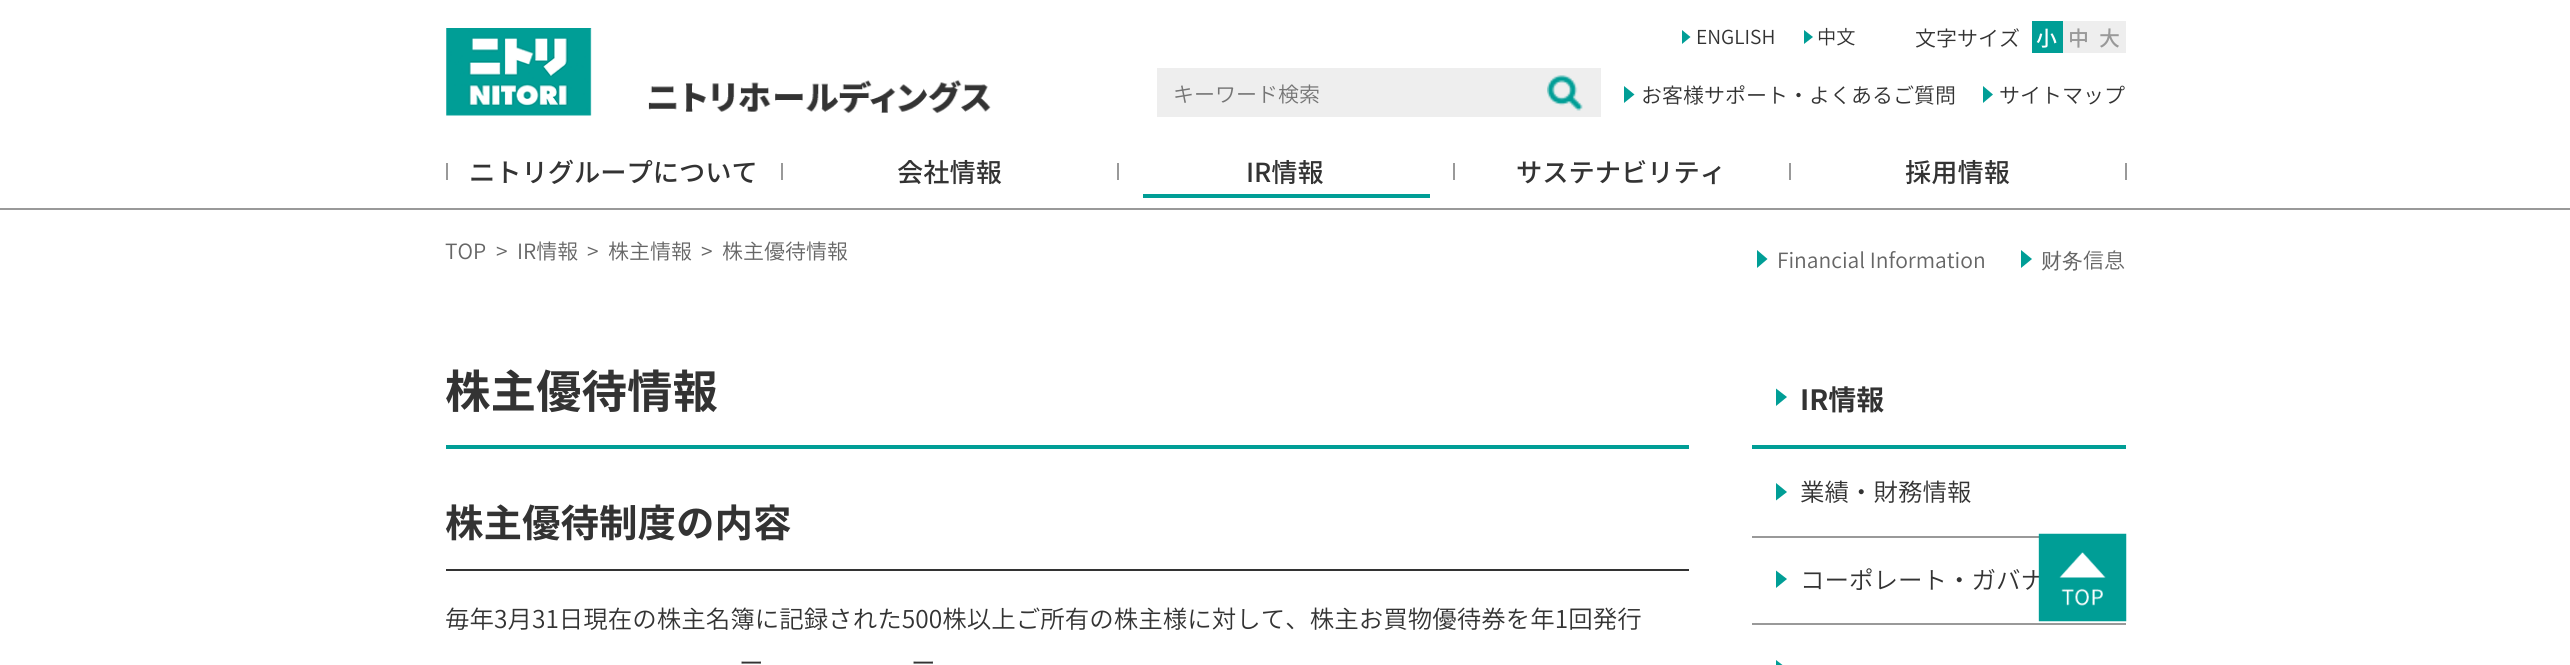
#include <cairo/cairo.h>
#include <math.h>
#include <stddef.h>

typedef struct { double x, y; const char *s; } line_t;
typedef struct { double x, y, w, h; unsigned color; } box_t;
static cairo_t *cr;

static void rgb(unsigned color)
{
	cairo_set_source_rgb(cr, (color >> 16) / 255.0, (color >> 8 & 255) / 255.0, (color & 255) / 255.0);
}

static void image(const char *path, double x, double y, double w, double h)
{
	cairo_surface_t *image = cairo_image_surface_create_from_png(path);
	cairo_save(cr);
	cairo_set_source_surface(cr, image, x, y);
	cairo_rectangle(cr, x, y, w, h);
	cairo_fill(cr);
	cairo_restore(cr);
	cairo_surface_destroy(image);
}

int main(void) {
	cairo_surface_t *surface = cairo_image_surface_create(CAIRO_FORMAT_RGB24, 2570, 665);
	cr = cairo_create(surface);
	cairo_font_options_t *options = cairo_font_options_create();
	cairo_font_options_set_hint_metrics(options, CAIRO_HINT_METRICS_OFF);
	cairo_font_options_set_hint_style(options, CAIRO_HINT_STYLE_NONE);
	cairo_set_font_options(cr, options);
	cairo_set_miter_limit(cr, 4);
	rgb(0xffffff);
	cairo_paint(cr);
	rgb(0x999999);
	cairo_rectangle(cr, 0, 208, 2570, 2);
	cairo_fill(cr);
	rgb(0x009e96);
	cairo_new_path(cr);
	cairo_move_to(cr, 1682, 44);
	cairo_line_to(cr, 1682, 30);
	cairo_line_to(cr, 1690.5, 37);
	cairo_close_path(cr);
	cairo_fill(cr);
	cairo_new_path(cr);
	cairo_move_to(cr, 1804, 44);
	cairo_line_to(cr, 1804, 30);
	cairo_line_to(cr, 1813, 37);
	cairo_close_path(cr);
	cairo_fill(cr);
	{
		static const box_t items[] = {
			{2032, 21, 31, 32, 0x009e96},
			{2063, 21, 63, 32, 0xeeeeee},
			{1157, 68, 444, 49, 0xeeeeee},
		};
		for (size_t i = 0; i < sizeof items / sizeof *items; i++) {
			rgb(items[i].color);
			cairo_rectangle(cr, items[i].x, items[i].y, items[i].w, items[i].h);
			cairo_fill(cr);
		}
	}
	image("img/1.png", 1547, 75, 36, 36);
	rgb(0x009e96);
	cairo_new_path(cr);
	cairo_move_to(cr, 1624, 103);
	cairo_line_to(cr, 1624, 86);
	cairo_line_to(cr, 1634.5, 94.5);
	cairo_close_path(cr);
	cairo_fill(cr);
	cairo_new_path(cr);
	cairo_move_to(cr, 1983, 103);
	cairo_line_to(cr, 1983, 86);
	cairo_line_to(cr, 1993, 94.5);
	cairo_close_path(cr);
	cairo_fill(cr);
	{
		static const box_t items[] = {
			{446, 163, 2, 17, 0x999999},
			{781, 163, 2, 17, 0x999999},
			{1117, 163, 2, 17, 0x999999},
			{1143, 194, 287, 4, 0x009e96},
			{1453, 163, 2, 17, 0x999999},
			{1789, 163, 2, 17, 0x999999},
			{2125, 163, 2, 17, 0x999999},
		};
		for (size_t i = 0; i < sizeof items / sizeof *items; i++) {
			rgb(items[i].color);
			cairo_rectangle(cr, items[i].x, items[i].y, items[i].w, items[i].h);
			cairo_fill(cr);
		}
	}
	image("img/2.png", 446, 28, 545, 88);
	rgb(0x009e96);
	cairo_new_path(cr);
	cairo_move_to(cr, 1757, 268);
	cairo_line_to(cr, 1757, 250);
	cairo_line_to(cr, 1767.5, 259);
	cairo_close_path(cr);
	cairo_fill(cr);
	cairo_new_path(cr);
	cairo_move_to(cr, 2021, 268);
	cairo_line_to(cr, 2021, 250);
	cairo_line_to(cr, 2032, 259);
	cairo_close_path(cr);
	cairo_fill(cr);
	{
		static const box_t items[] = {
			{446, 445, 1243, 4, 0x009e96},
			{446, 569, 1243, 2, 0x333333},
			{1752, 445, 374, 4, 0x009e96},
		};
		for (size_t i = 0; i < sizeof items / sizeof *items; i++) {
			rgb(items[i].color);
			cairo_rectangle(cr, items[i].x, items[i].y, items[i].w, items[i].h);
			cairo_fill(cr);
		}
	}
	cairo_new_path(cr);
	cairo_move_to(cr, 1776, 406);
	cairo_line_to(cr, 1776, 388.5);
	cairo_line_to(cr, 1787, 397);
	cairo_close_path(cr);
	cairo_fill(cr);
	cairo_new_path(cr);
	cairo_move_to(cr, 1776, 500.5);
	cairo_line_to(cr, 1776, 483);
	cairo_line_to(cr, 1787, 492);
	cairo_close_path(cr);
	cairo_fill(cr);
	rgb(0x999999);
	cairo_rectangle(cr, 1752, 536, 287, 2);
	cairo_fill(cr);
	rgb(0x009e96);
	cairo_new_path(cr);
	cairo_move_to(cr, 1776, 588);
	cairo_line_to(cr, 1776, 570.5);
	cairo_line_to(cr, 1787, 579);
	cairo_close_path(cr);
	cairo_fill(cr);
	rgb(0x999999);
	cairo_rectangle(cr, 1752, 623, 374, 2);
	cairo_fill(cr);
	rgb(0x009e96);
	cairo_new_path(cr);
	cairo_move_to(cr, 1776, 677);
	cairo_line_to(cr, 1776, 660);
	cairo_line_to(cr, 1787, 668.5);
	cairo_close_path(cr);
	cairo_fill(cr);
	cairo_select_font_face(cr, "Noto Sans JP Light", CAIRO_FONT_SLANT_NORMAL, CAIRO_FONT_WEIGHT_NORMAL);
	cairo_set_font_size(cr, 19.25);
	rgb(0x333333);
	cairo_move_to(cr, 1696, 44);
	cairo_show_text(cr, "ENGLISH");
	cairo_move_to(cr, 1817, 44);
	cairo_show_text(cr, "中文");
	cairo_set_font_size(cr, 21);
	cairo_move_to(cr, 1915, 46);
	cairo_show_text(cr, "文字サイズ");
	cairo_select_font_face(cr, "Noto Sans JP Medium", CAIRO_FONT_SLANT_NORMAL, CAIRO_FONT_WEIGHT_NORMAL);
	rgb(0xffffff);
	cairo_move_to(cr, 2036, 46);
	cairo_show_text(cr, "小");
	rgb(0x999999);
	cairo_move_to(cr, 2068, 46);
	cairo_show_text(cr, "中");
	cairo_move_to(cr, 2099, 46);
	cairo_show_text(cr, "大");
	cairo_select_font_face(cr, "Noto Sans JP Light", CAIRO_FONT_SLANT_NORMAL, CAIRO_FONT_WEIGHT_NORMAL);
	rgb(0x757575);
	cairo_move_to(cr, 1173, 102);
	cairo_show_text(cr, "キーワード検索");
	rgb(0x333333);
	cairo_move_to(cr, 1641, 103);
	cairo_show_text(cr, "お客様サポート・よくあるご質問");
	cairo_move_to(cr, 1999, 103);
	cairo_show_text(cr, "サイトマップ");
	cairo_select_font_face(cr, "Noto Sans JP Medium", CAIRO_FONT_SLANT_NORMAL, CAIRO_FONT_WEIGHT_NORMAL);
	cairo_set_font_size(cr, 26.25);
	{
		static const line_t items[] = {
			{469, 182, "ニトリグループについて"},
			{897, 182, "会社情報"},
			{1246, 182, "IR情報"},
			{1516, 182, "サステナビリティ"},
			{1905, 182, "採用情報"},
		};
		for (size_t i = 0; i < sizeof items / sizeof *items; i++) {
			cairo_move_to(cr, items[i].x, items[i].y);
			cairo_show_text(cr, items[i].s);
		}
	}
	cairo_select_font_face(cr, "Noto Sans JP Light", CAIRO_FONT_SLANT_NORMAL, CAIRO_FONT_WEIGHT_NORMAL);
	cairo_set_font_size(cr, 21);
	rgb(0x666666);
	{
		static const line_t items[] = {
			{445, 259, "TOP"},
			{496, 259, ">"},
			{517, 259, "IR情報"},
			{587, 259, ">"},
			{608, 259, "株主情報"},
			{701, 259, ">"},
			{722, 259, "株主優待情報"},
			{1777, 268, "Financial Information"},
		};
		for (size_t i = 0; i < sizeof items / sizeof *items; i++) {
			cairo_move_to(cr, items[i].x, items[i].y);
			cairo_show_text(cr, items[i].s);
		}
	}
	cairo_select_font_face(cr, "WenQuanYi Zen Hei Medium", CAIRO_FONT_SLANT_NORMAL, CAIRO_FONT_WEIGHT_NORMAL);
	cairo_move_to(cr, 2041, 268);
	cairo_show_text(cr, "财务");
	cairo_select_font_face(cr, "Noto Sans JP Light", CAIRO_FONT_SLANT_NORMAL, CAIRO_FONT_WEIGHT_NORMAL);
	cairo_move_to(cr, 2083, 268);
	cairo_show_text(cr, "信息");
	cairo_select_font_face(cr, "Noto Sans JP", CAIRO_FONT_SLANT_NORMAL, CAIRO_FONT_WEIGHT_BOLD);
	cairo_set_font_size(cr, 45.5);
	rgb(0x333333);
	cairo_move_to(cr, 445, 408);
	cairo_show_text(cr, "株主優待情報");
	cairo_set_font_size(cr, 38.5);
	cairo_move_to(cr, 445, 537);
	cairo_show_text(cr, "株主優待制度の内容");
	cairo_select_font_face(cr, "Noto Sans JP Light", CAIRO_FONT_SLANT_NORMAL, CAIRO_FONT_WEIGHT_NORMAL);
	cairo_set_font_size(cr, 24.5);
	{
		static const line_t items[] = {
			{445, 628, "毎年3月31日現在の株主名簿に記録された500株以上ご所有の株主様に対して、株主お買物優待券を年1回発行"},
			{739, 672, "ー"},
			{911, 672, "ー"},
		};
		for (size_t i = 0; i < sizeof items / sizeof *items; i++) {
			cairo_move_to(cr, items[i].x, items[i].y);
			cairo_show_text(cr, items[i].s);
		}
	}
	cairo_select_font_face(cr, "Noto Sans JP", CAIRO_FONT_SLANT_NORMAL, CAIRO_FONT_WEIGHT_BOLD);
	cairo_set_font_size(cr, 28);
	cairo_move_to(cr, 1800, 410);
	cairo_show_text(cr, "IR情報");
	cairo_select_font_face(cr, "Noto Sans JP Light", CAIRO_FONT_SLANT_NORMAL, CAIRO_FONT_WEIGHT_NORMAL);
	cairo_set_font_size(cr, 24.5);
	cairo_move_to(cr, 1800, 501);
	cairo_show_text(cr, "業績・財務情報");
	cairo_move_to(cr, 1800, 589);
	cairo_show_text(cr, "コーポレート・ガバナ");
	image("img/3.png", 2038, 533, 89, 89);
	cairo_surface_write_to_png(surface, "page.png");
	cairo_font_options_destroy(options);
	cairo_destroy(cr);
	cairo_surface_destroy(surface);
	return 0;
}
